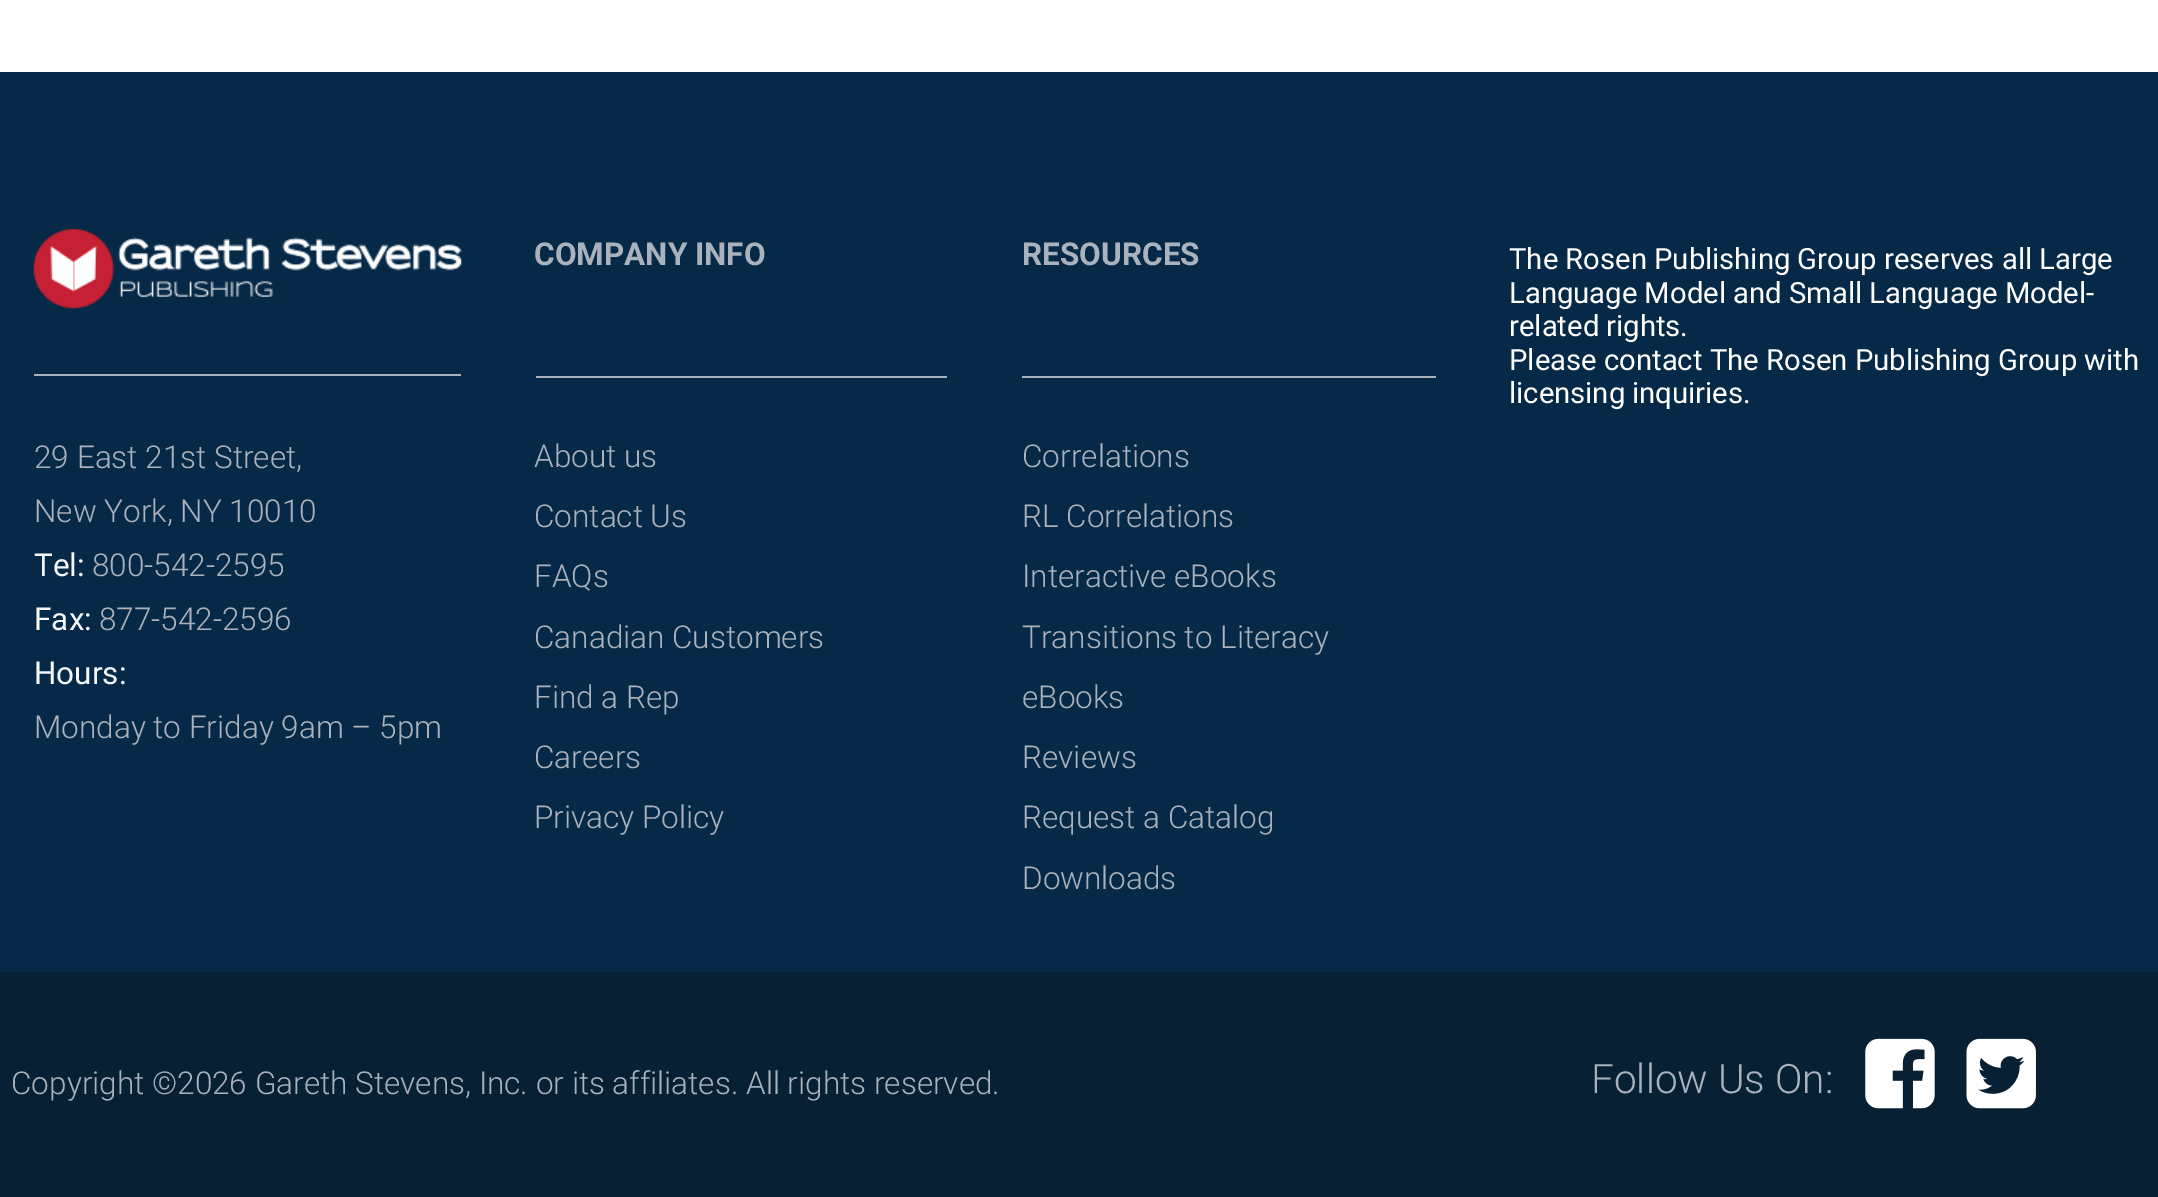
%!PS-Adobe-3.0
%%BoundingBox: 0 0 2158 1197
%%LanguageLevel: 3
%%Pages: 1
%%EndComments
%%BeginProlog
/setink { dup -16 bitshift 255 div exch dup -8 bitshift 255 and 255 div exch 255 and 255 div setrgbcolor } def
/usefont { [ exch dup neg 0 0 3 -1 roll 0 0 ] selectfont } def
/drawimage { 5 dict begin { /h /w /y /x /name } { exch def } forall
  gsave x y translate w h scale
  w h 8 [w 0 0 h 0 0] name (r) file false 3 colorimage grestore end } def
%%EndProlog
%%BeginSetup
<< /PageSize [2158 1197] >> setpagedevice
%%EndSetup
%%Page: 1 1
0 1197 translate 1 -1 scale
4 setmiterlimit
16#FFFFFF setink
0 0 2158 1197 rectfill
16#062947 setink
0 72 2158 900 rectfill
/Roboto-Bold 31.5 usefont
16#AAB2BD setink
534 265 moveto (COMPANY INFO) show
536 376 411 2 rectfill
/Roboto-Light 31.5 usefont
[
    [(About us) 534 467]
    [(Contact Us) 534 527]
    [(FAQs) 534 587]
    [(Canadian Customers) 534 648]
    [(Find a Rep) 534 708]
    [(Careers) 534 768]
    [(Privacy Policy) 534 828]
] { aload pop moveto show } forall
/Roboto-Bold 31.5 usefont
1022 265 moveto (RESOURCES) show
1022 376 414 2 rectfill
/Roboto-Light 31.5 usefont
[
    [(Correlations) 1022 467]
    [(RL Correlations) 1022 527]
    [(Interactive eBooks) 1022 587]
    [(Transitions to Literacy) 1022 648]
    [(eBooks) 1022 708]
    [(Reviews) 1022 768]
    [(Request a Catalog) 1022 828]
    [(Downloads) 1022 889]
] { aload pop moveto show } forall
/Roboto-Regular 29.25 usefont
16#FFFFFF setink
[
    [(The Rosen Publishing Group reserves all Large) 1509 269]
    [(Language Model and Small Language Model-) 1509 303]
    [(related rights.) 1509 336]
    [(Please contact The Rosen Publishing Group with) 1509 370]
    [(licensing inquiries.) 1509 403]
] { aload pop moveto show } forall
16#AAB2BD setink
34 374 427 2 rectfill
(img1.raw) 33 229 429 80 drawimage
/Roboto-Light 31.5 usefont
34 468 moveto (29 East 21st Street,) show
34 522 moveto (New York, NY 10010) show
/Roboto-Regular 31.5 usefont
16#F5F7FA setink
34 576 moveto (Tel:) show
/Roboto-Light 31.5 usefont
16#AAB2BD setink
92 576 moveto (800-542-2595) show
/Roboto-Regular 31.5 usefont
16#F5F7FA setink
34 630 moveto (Fax:) show
/Roboto-Light 31.5 usefont
16#AAB2BD setink
99 630 moveto (877-542-2596) show
/Roboto-Regular 31.5 usefont
16#F5F7FA setink
34 684 moveto (Hours:) show
/Roboto-Light 31.5 usefont
16#AAB2BD setink
34 738 moveto (Monday to Friday 9am – 5pm) show
16#082034 setink
0 972 2158 225 rectfill
16#AAB2BD setink
11 1094 moveto (Copyright ©2026 Gareth Stevens, Inc. or its affiliates. All rights reserved.) show
/Roboto-Light 40.5 usefont
1591 1093 moveto (Follow Us On:) show
(img2.raw) 1865 1038 70 71 drawimage
(img3.raw) 1966 1038 70 71 drawimage
showpage
%%EOF
